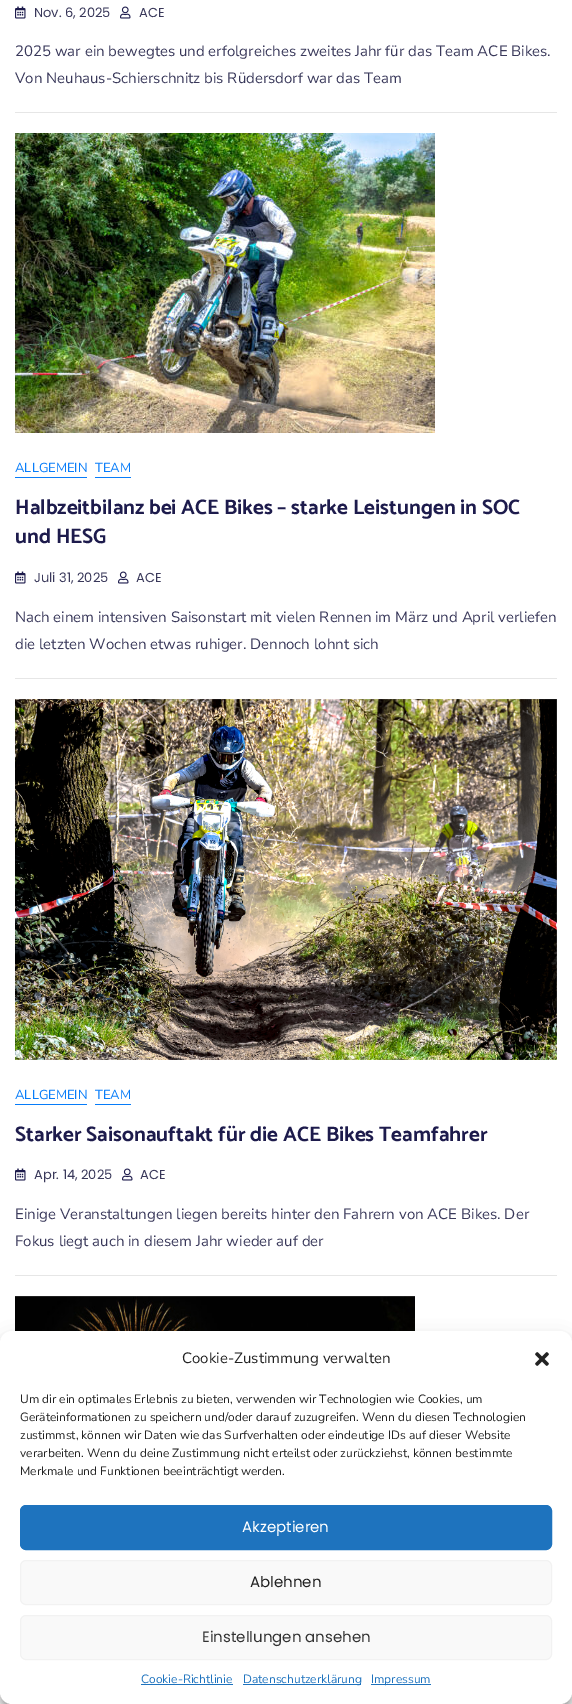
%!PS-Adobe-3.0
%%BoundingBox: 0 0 572 1704
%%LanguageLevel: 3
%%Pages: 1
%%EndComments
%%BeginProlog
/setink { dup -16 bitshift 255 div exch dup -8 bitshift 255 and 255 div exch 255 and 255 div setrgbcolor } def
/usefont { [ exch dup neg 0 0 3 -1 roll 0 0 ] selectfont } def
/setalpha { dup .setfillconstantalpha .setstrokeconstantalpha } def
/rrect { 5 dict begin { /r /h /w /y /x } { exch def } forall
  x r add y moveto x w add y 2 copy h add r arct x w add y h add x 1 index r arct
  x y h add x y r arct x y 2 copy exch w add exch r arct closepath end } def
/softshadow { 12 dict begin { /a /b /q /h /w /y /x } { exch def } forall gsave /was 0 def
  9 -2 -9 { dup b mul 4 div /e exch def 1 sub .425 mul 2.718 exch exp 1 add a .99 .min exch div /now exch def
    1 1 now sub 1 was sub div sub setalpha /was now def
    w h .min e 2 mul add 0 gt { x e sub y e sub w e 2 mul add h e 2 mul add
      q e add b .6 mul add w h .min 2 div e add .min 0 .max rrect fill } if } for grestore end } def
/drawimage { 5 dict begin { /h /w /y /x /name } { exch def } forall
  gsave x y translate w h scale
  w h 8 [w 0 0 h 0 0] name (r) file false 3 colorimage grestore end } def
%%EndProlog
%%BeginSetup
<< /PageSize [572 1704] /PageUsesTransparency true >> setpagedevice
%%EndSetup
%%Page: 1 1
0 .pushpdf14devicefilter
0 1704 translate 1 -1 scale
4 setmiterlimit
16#FFFFFF setink
0 0 572 1704 rectfill
16#E6E6E6 setink
15 112 542 1 rectfill
(img1.raw) 15 6 11 13 drawimage
/Poppins-Regular 13 usefont
16#39385A setink
34 17 moveto (Nov. 6, 2025) show
(img2.raw) 120 6 11 13 drawimage
139 17 moveto (ACE) show
/NunitoSans-ExtraLight 15 usefont
15 56 moveto (2025 war ein bewegtes und erfolgreiches zweites Jahr für das Team ACE Bikes.) show
15 83 moveto (Von Neuhaus-Schierschnitz bis Rüdersdorf war das Team) show
16#E6E6E6 setink
15 678 542 1 rectfill
(img3.raw) 15 133 420 300 drawimage
/NunitoSans-ExtraLight 13 usefont
16#077CF9 setink
15 472 moveto (ALLGEMEIN) show
15 477 72 1 rectfill
95 472 moveto (TEAM) show
95 477 36 1 rectfill
/Catamaran-Bold 21 usefont
16#1D1B4C setink
15 514 moveto (Halbzeitbilanz bei ACE Bikes – starke Leistungen in SOC) show
15 543 moveto (und HESG) show
(img1.raw) 15 571 11 13 drawimage
/Poppins-Regular 13 usefont
16#39385A setink
34 582 moveto (Juli 31, 2025) show
(img2.raw) 118 571 11 13 drawimage
136 582 moveto (ACE) show
/NunitoSans-ExtraLight 15 usefont
15 622 moveto (Nach einem intensiven Saisonstart mit vielen Rennen im März und April verliefen) show
15 649 moveto (die letzten Wochen etwas ruhiger. Dennoch lohnt sich) show
16#E6E6E6 setink
15 1275 542 1 rectfill
(img4.raw) 15 699 542 361 drawimage
/NunitoSans-ExtraLight 13 usefont
16#077CF9 setink
15 1099 moveto (ALLGEMEIN) show
15 1104 72 1 rectfill
95 1099 moveto (TEAM) show
95 1104 36 1 rectfill
/Catamaran-Bold 21 usefont
16#1D1B4C setink
15 1141 moveto (Starker Saisonauftakt für die ACE Bikes Teamfahrer) show
(img1.raw) 15 1168 11 13 drawimage
/Poppins-Regular 13 usefont
16#39385A setink
34 1179 moveto (Apr. 14, 2025) show
(img2.raw) 122 1168 11 13 drawimage
140 1179 moveto (ACE) show
/NunitoSans-ExtraLight 15 usefont
15 1219 moveto (Einige Veranstaltungen liegen bereits hinter den Fahrern von ACE Bikes. Der) show
15 1246 moveto (Fokus liegt auch in diesem Jahr wieder auf der) show
(img5.raw) 15 1296 400 35 drawimage
16#000000 setink
0 1337 572 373 12 3 0.23 softshadow
0 1341 572 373 12 10 0.19 softshadow
16#FFFFFF setink
0 1331 572 373 12 rrect fill
16#222222 setink
182 1363 moveto (Cookie-Zustimmung verwalten) show
(img6.raw) 535 1352 14 14 drawimage
/NunitoSans-ExtraLight 12 usefont
[
    [(Um dir ein optimales Erlebnis zu bieten, verwenden wir Technologien wie Cookies, um) 20 1403]
    [(Geräteinformationen zu speichern und/oder darauf zuzugreifen. Wenn du diesen Technologien) 20 1421]
    [(zustimmst, können wir Daten wie das Surfverhalten oder eindeutige IDs auf dieser Website) 20 1439]
    [(verarbeiten. Wenn du deine Zustimmung nicht erteilst oder zurückziehst, können bestimmte) 20 1457]
    [(Merkmale und Funktionen beeinträchtigt werden.) 20 1475]
] { aload pop moveto show } forall
16#1E73BE setink
20.5 1505.5 531 44 5.5 rrect gsave fill grestore
stroke
/Poppins-Regular 15 usefont
16#FFFFFF setink
242 1532 moveto (Akzeptieren) show
16#F9F9F9 setink
20.5 1560.5 531 44 5.5 rrect gsave fill grestore
16#F2F2F2 setink
stroke
16#222222 setink
250 1587 moveto (Ablehnen) show
16#F9F9F9 setink
20.5 1615.5 531 44 5.5 rrect gsave fill grestore
16#F2F2F2 setink
stroke
16#333333 setink
202 1642 moveto (Einstellungen ansehen) show
/NunitoSans-ExtraLight 12 usefont
16#1E73BE setink
141 1683 moveto (Cookie-Richtlinie) show
141 1684 92 1 rectfill
243 1684 118 1 rectfill
243 1683 moveto (Datenschutzerklärung) show
371 1684 60 1 rectfill
371 1683 moveto (Impressum) show
.poppdf14devicefilter showpage
%%EOF
